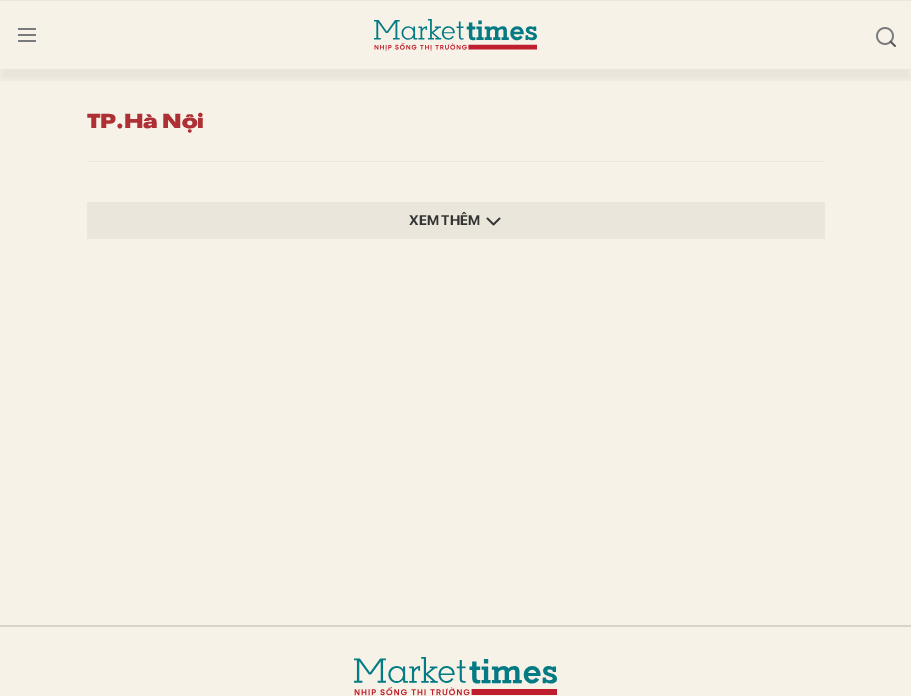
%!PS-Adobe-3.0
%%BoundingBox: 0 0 911 696
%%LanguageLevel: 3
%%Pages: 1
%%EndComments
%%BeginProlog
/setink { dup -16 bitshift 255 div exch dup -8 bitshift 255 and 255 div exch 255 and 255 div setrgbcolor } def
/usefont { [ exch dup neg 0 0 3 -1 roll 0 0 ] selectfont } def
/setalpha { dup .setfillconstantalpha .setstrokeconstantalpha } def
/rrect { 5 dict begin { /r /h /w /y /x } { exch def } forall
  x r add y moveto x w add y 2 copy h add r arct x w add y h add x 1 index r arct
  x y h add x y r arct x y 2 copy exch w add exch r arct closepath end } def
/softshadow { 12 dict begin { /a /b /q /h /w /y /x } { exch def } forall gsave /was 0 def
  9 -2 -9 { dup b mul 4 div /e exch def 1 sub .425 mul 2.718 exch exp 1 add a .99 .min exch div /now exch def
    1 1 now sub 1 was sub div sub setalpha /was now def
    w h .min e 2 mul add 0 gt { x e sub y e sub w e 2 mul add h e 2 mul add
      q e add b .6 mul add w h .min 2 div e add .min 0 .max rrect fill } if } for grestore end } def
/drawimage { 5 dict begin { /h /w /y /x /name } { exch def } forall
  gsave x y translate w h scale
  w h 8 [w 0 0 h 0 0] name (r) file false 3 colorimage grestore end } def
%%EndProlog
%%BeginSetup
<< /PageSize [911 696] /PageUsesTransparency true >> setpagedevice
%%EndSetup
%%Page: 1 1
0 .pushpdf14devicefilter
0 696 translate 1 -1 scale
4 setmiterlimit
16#F7F2E7 setink
0 0 911 696 rectfill
16#EBE6DB setink
0 0 911 1 rectfill
gsave
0 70 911 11 rectclip
16#000000 setink
0 11 911 69 0 5 0.05 softshadow
grestore
0 69 911 1 rectfill
16#797A7E setink
18 34 18 2 1 rrect fill
18 28 18 2 1 rrect fill
18 40 18 2 1 rrect fill
(img1.raw) 374 19 163 32 drawimage
(img2.raw) 876 27 20 20 drawimage
/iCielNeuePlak-Black 20 usefont
16#AE3034 setink
87 128 moveto (TP.Hà Nội) show
16#EBE6DB setink
87 161 738 1 rectfill
87 202 738 37 rectfill
/SFProDisplay-Bold 14 usefont
16#333333 setink
409 225 moveto (XEM THÊM) show
(img3.raw) 486 217 15 9 drawimage
16#D8D3CD setink
0 625 911 2 rectfill
(img4.raw) 354 657 203 39 drawimage
.poppdf14devicefilter showpage
%%EOF
